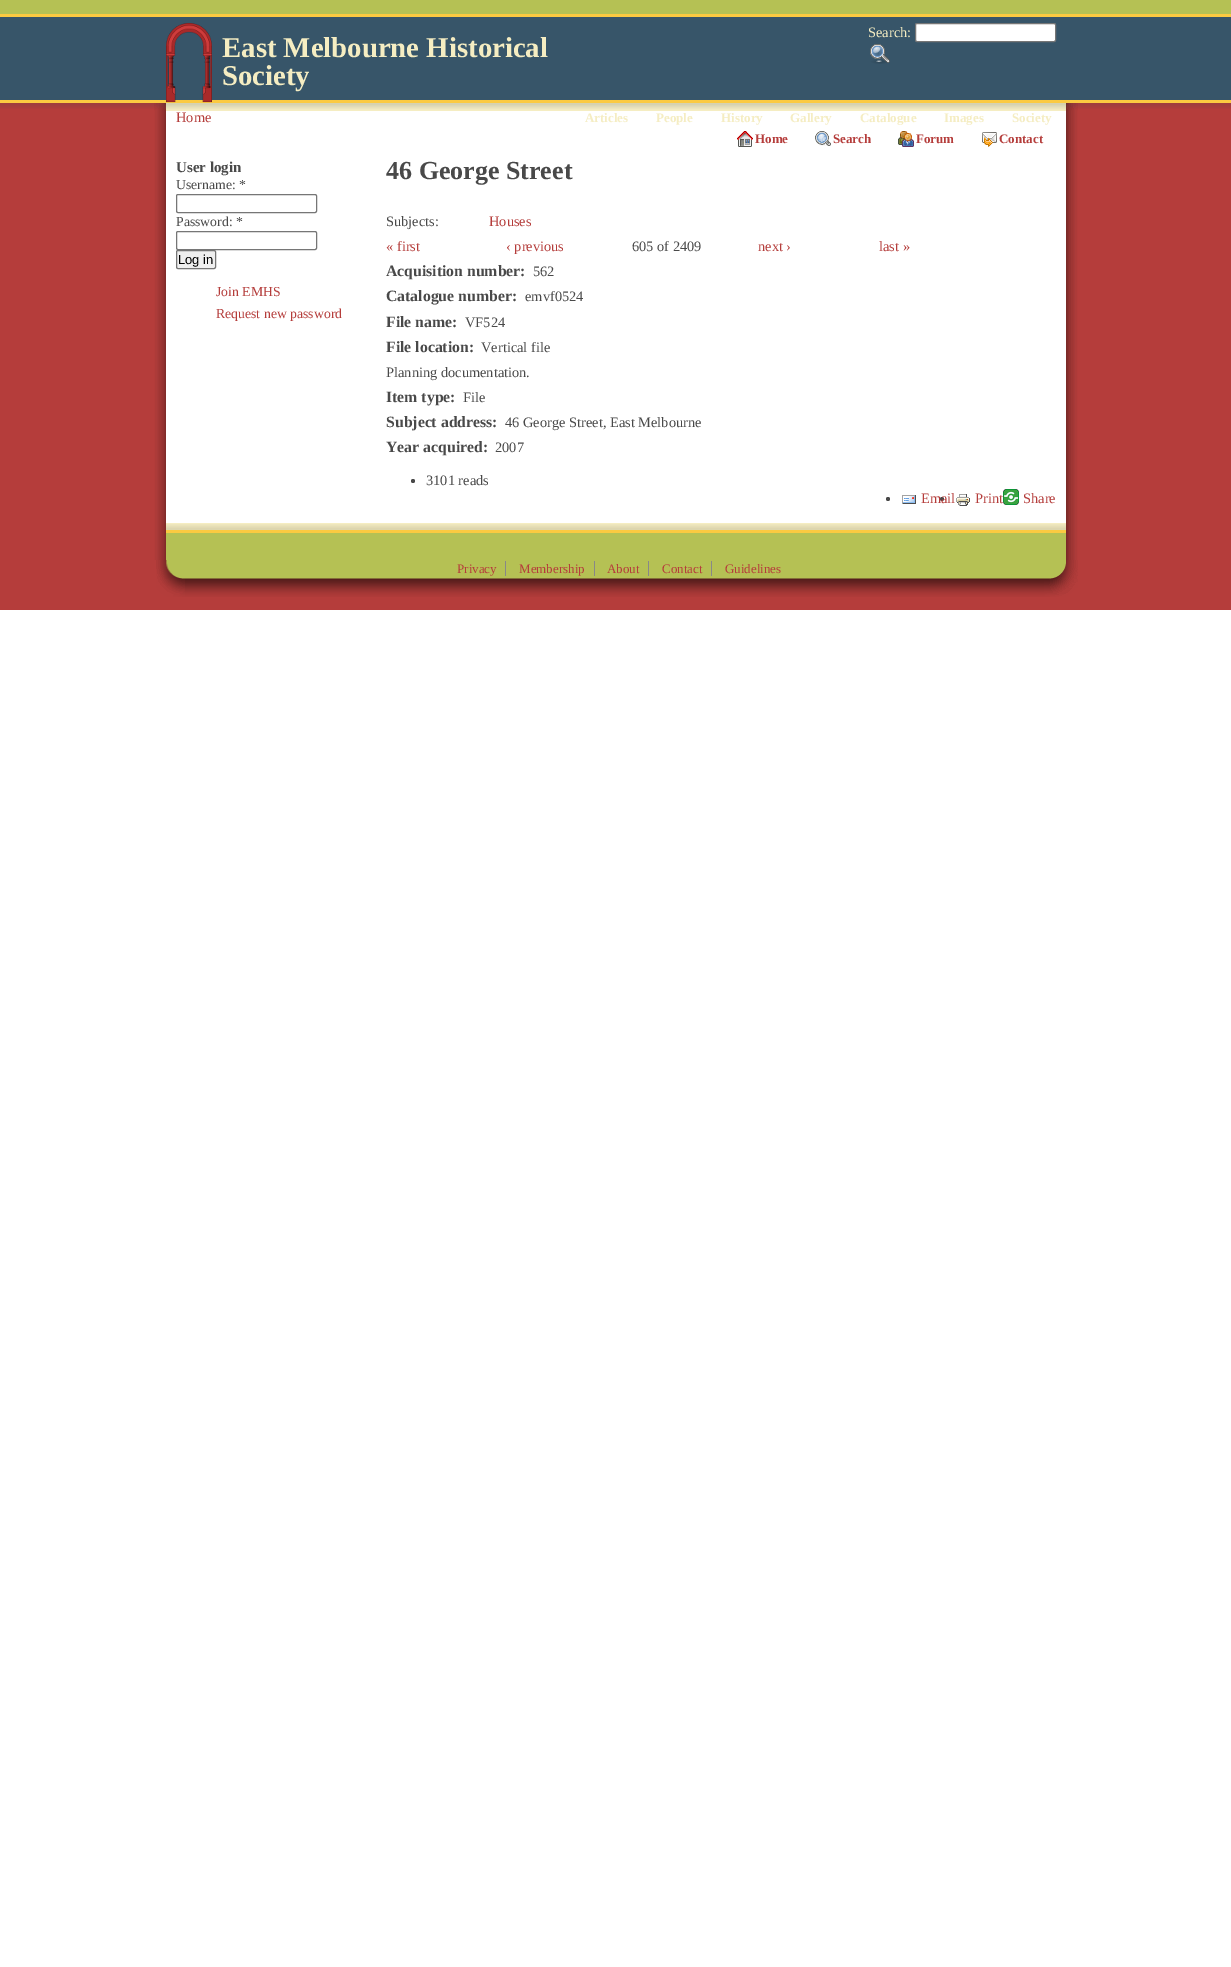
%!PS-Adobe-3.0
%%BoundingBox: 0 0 1231 1967
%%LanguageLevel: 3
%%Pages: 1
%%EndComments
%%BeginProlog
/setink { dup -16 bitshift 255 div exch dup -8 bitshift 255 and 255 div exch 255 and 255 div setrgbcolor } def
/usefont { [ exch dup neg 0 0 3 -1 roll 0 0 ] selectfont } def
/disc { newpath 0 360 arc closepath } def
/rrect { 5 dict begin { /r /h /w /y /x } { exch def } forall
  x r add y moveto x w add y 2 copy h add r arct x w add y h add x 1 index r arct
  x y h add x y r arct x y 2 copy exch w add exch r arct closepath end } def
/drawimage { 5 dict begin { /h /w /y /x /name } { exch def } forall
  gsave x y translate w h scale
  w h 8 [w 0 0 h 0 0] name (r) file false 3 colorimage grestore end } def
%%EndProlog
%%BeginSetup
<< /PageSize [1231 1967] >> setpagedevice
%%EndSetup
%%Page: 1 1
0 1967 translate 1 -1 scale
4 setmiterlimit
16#FFFFFF setink
0 0 1231 1967 rectfill
[
    [0 0 1231 14 16#B5C154]
    [0 17 1231 83 16#375569]
    [0 14 1231 3 16#FBCA41]
    [0 100 1231 3 16#FBCA41]
] { aload pop setink rectfill } forall
(img1.raw) 166 23 46 80 drawimage
/LiberationSerif-Regular 14.4 usefont
16#F5EDC2 setink
868 37 moveto (Search:) show
16#FFFFFF setink
915.5 23.5 140 18 1.5 rrect gsave fill grestore
16#767676 setink
stroke
(img2.raw) 870 44 20 20 drawimage
/LiberationSerif-Bold 28.75 usefont
16#F5EDC2 setink
222 57 moveto (East Melbourne Historical) show
222 85 moveto (Society) show
16#B53D3B setink
0 109 1231 501 rectfill
16#FFFFFF setink
166 111 900 412 rectfill
/LiberationSerif-Bold 13 usefont
16#F5EDC2 setink
[
    [(Articles) 585 122]
    [(People) 656 122]
    [(History) 721 122]
    [(Gallery) 790 122]
    [(Catalogue) 860 122]
    [(Images) 944 122]
    [(Society) 1012 122]
] { aload pop moveto show } forall
(img3.raw) 0 103 1231 6 drawimage
(img4.raw) 1066 103 12 457 drawimage
(img5.raw) 154 103 12 457 drawimage
(img6.raw) 166 103 900 8 drawimage
/LiberationSerif-Regular 14.4 usefont
16#B53D3B setink
176 122 moveto (Home) show
(img7.raw) 737 131 16 16 drawimage
/LiberationSerif-Bold 13 usefont
755 143 moveto (Home) show
(img8.raw) 815 131 16 15 drawimage
833 143 moveto (Search) show
(img9.raw) 898 131 16 16 drawimage
916 143 moveto (Forum) show
(img10.raw) 982 132 15 15 drawimage
999 143 moveto (Contact) show
/LiberationSerif-Bold 15 usefont
16#494949 setink
176 172 moveto (User login) show
/LiberationSerif-Regular 13.75 usefont
176 189 moveto (Username: *) show
16#767676 setink
176.5 194.5 140 18 1.5 rrect stroke
16#494949 setink
176 226 moveto (Password: *) show
16#767676 setink
176.5 231.5 140 18 1.5 rrect stroke
16#EFEFEF setink
176.5 250.5 39 18 1.5 rrect gsave fill grestore
16#767676 setink
stroke
/LiberationSans-Regular 13 usefont
16#000000 setink
178 264 moveto (Log in) show
/LiberationSerif-Regular 13.75 usefont
16#B53D3B setink
216 296 moveto (Join EMHS) show
216 318 moveto (Request new password) show
/LiberationSerif-Bold 26 usefont
16#494949 setink
386 179 moveto (46 George Street) show
/LiberationSerif-Regular 14.4 usefont
386 226 moveto (Subjects:) show
16#B53D3B setink
[
    [(Houses) 489 226]
    [(« first) 386 251]
    [(‹ previous) 506 251]
] { aload pop moveto show } forall
16#494949 setink
632 251 moveto (605 of 2409) show
16#B53D3B setink
758 251 moveto (next ›) show
879 251 moveto (last ») show
/LiberationSerif-Bold 15.75 usefont
16#494949 setink
386 276 moveto (Acquisition number:) show
/LiberationSerif-Regular 14.4 usefont
533 276 moveto (562) show
/LiberationSerif-Bold 15.75 usefont
386 301 moveto (Catalogue number:) show
/LiberationSerif-Regular 14.4 usefont
525 301 moveto (emvf0524) show
/LiberationSerif-Bold 15.75 usefont
386 327 moveto (File name:) show
/LiberationSerif-Regular 14.4 usefont
465 327 moveto (VF524) show
/LiberationSerif-Bold 15.75 usefont
386 352 moveto (File location:) show
/LiberationSerif-Regular 14.4 usefont
481 352 moveto (Vertical file) show
386 377 moveto (Planning documentation.) show
/LiberationSerif-Bold 15.75 usefont
386 402 moveto (Item type:) show
/LiberationSerif-Regular 14.4 usefont
463 402 moveto (File) show
/LiberationSerif-Bold 15.75 usefont
386 427 moveto (Subject address:) show
/LiberationSerif-Regular 14.4 usefont
505 427 moveto (46 George Street, East Melbourne) show
/LiberationSerif-Bold 15.75 usefont
386 452 moveto (Year acquired:) show
/LiberationSerif-Regular 14.4 usefont
495 452 moveto (2007) show
413 481 2 disc fill
426 485 moveto (3101 reads) show
888 499 2 disc fill
(img11.raw) 902 495 14 9 drawimage
942 499 2 disc fill
16#B53D3B setink
921 503 moveto (Email) show
(img12.raw) 956 494 14 12 drawimage
(img13.raw) 1003 489 16 16 drawimage
975 503 moveto (Print) show
1023 503 moveto (Share) show
16#F5EDC2 setink
166 523 900 1 rectfill
(img14.raw) 166 524 900 9 drawimage
16#B5C154 setink
166 533 900 27 rectfill
(img17.raw) 185 560 859 37 drawimage
/LiberationSerif-Regular 13 usefont
16#B53D3B setink
457 573 moveto (Privacy) show
519 573 moveto (Membership) show
16#888888 setink
505 561 1 15 rectfill
16#B53D3B setink
607 573 moveto (About) show
16#888888 setink
594 561 1 15 rectfill
16#B53D3B setink
662 573 moveto (Contact) show
16#888888 setink
648 561 1 15 rectfill
16#B53D3B setink
725 573 moveto (Guidelines) show
16#888888 setink
711 561 1 15 rectfill
(img15.raw) 1044 560 34 37 drawimage
(img16.raw) 156 560 29 37 drawimage
showpage
%%EOF
